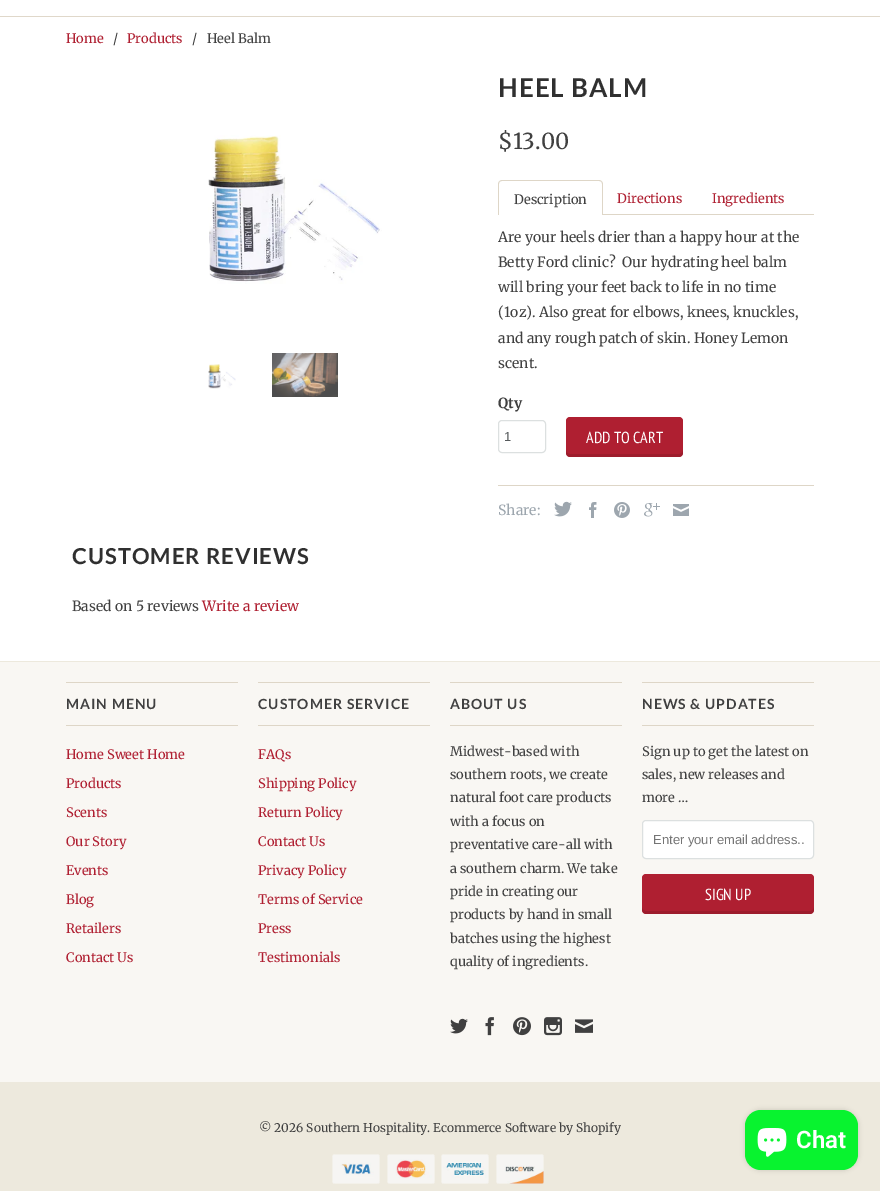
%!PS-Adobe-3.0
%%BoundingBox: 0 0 880 1191
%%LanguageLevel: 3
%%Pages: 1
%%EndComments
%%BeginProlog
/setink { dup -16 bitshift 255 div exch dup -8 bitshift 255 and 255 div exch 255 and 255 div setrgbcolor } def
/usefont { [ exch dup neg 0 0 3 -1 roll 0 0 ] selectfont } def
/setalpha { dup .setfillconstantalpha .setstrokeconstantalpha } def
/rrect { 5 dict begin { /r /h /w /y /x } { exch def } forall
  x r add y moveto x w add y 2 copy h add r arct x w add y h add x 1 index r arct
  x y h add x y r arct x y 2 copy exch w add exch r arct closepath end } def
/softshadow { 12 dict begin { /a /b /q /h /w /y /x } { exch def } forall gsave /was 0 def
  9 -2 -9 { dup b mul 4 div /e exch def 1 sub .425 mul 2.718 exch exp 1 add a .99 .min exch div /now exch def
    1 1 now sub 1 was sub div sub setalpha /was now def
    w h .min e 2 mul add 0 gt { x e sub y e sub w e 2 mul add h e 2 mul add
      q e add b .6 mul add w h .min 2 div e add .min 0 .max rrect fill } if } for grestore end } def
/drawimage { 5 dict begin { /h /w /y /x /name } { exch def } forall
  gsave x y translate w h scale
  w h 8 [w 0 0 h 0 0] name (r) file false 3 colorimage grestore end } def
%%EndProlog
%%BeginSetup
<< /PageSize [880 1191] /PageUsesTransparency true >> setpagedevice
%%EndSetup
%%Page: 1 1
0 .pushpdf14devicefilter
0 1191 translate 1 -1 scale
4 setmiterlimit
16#FFFFFF setink
0 0 880 1191 rectfill
16#E0D8CA setink
0 16 880 1 rectfill
/Merriweather-Regular 13 usefont
16#AF1F31 setink
66 43 moveto (Home) show
16#404040 setink
113 43 moveto (/) show
16#AF1F31 setink
127 43 moveto (Products) show
16#404040 setink
192 43 moveto (/) show
207 43 moveto (Heel Balm) show
(img1.raw) 208 135 174 149 drawimage
(img2.raw) 208 364 28 25 drawimage
(img3.raw) 272 353 66 44 drawimage
/Lato-Bold 26 usefont
16#303030 setink
498 97 moveto 1 0 (HEEL BALM) ashow
/Merriweather-Regular 22 usefont
16#404040 setink
498 149 moveto ($13.00) show
16#DED6C7 setink
603 214 211 1 rectfill
502 180 moveto 599 180 lineto 601 180 603 182 603 184 curveto 603 215 lineto 498 215 lineto 498 184 lineto 498 182 500 180 502 180 curveto closepath 502 181 moveto 599 181 lineto 601 181 602 182 602 184 curveto 602 215 lineto 499 215 lineto 499 184 lineto 499 182 500 181 502 181 curveto closepath eofill
/Merriweather-Regular 13 usefont
16#404040 setink
514 204 moveto (Description) show
16#AF1F31 setink
617 203 moveto (Directions) show
712 203 moveto (Ingredients) show
/Merriweather-Regular 14 usefont
16#404040 setink
[
    [(Are your heels drier than a happy hour at the) 498 242]
    [(Betty Ford clinic?  Our hydrating heel balm) 498 267]
    [(will bring your feet back to life in no time) 498 292]
    [(\(1oz\). Also great for elbows, knees, knuckles,) 498 317]
    [(and any rough patch of skin. Honey Lemon) 498 343]
    [(scent.) 498 368]
] { aload pop moveto show } forall
/Merriweather-Bold 14 usefont
498 408 moveto (Qty) show
16#DCE0E0 setink
498.5 420.5 47 32 3.5 rrect stroke
/LiberationSans-Regular 13 usefont
16#565A5C setink
504 441 moveto (1) show
16#AF1F31 setink
566 417 117 40 4 rrect fill
0.1 setalpha
16#000000 setink
566 450 moveto 566 453 lineto 566 455 568 457 570 457 curveto 679 457 lineto 681 457 683 455 683 453 curveto 683 450 lineto 683 452 681 454 679 454 curveto 570 454 lineto 568 454 566 452 566 450 curveto closepath fill
/PTSansNarrow-Regular 16 usefont
1 setalpha
16#FFFFFF setink
586 443 moveto (ADD TO CART) show
16#DED6C7 setink
498 485 316 1 rectfill
/Merriweather-Regular 14 usefont
16#9DA6AE setink
498 515 moveto (Share:) show
(img4.raw) 554 501 18 16 drawimage
(img5.raw) 589 502 8 16 drawimage
(img6.raw) 614 502 16 16 drawimage
(img7.raw) 644 503 16 14 drawimage
(img8.raw) 673 504 16 12 drawimage
/Lato-Bold 22 usefont
16#303030 setink
72 564 moveto 1 0 (CUSTOMER REVIEWS) ashow
/Merriweather-Regular 14 usefont
16#404040 setink
72 611 moveto (Based on 5 reviews) show
16#AF1F31 setink
202 611 moveto (Write a review) show
[
    [0 662 880 420 16#F9F7F3]
    [0 661 880 1 16#EDE9DD]
    [66 682 172 1 16#DED6C7]
    [66 725 172 1 16#DED6C7]
] { aload pop setink rectfill } forall
/Lato-Bold 14 usefont
16#404040 setink
66 709 moveto 1 0 (MAIN MENU) ashow
/Merriweather-Regular 13 usefont
16#AF1F31 setink
[
    [(Home Sweet Home) 66 759]
    [(Products) 66 788]
    [(Scents) 66 817]
    [(Our Story) 66 846]
    [(Events) 66 875]
    [(Blog) 66 904]
    [(Retailers) 66 933]
    [(Contact Us) 66 962]
] { aload pop moveto show } forall
16#DED6C7 setink
258 682 172 1 rectfill
258 725 172 1 rectfill
/Lato-Bold 14 usefont
16#404040 setink
258 709 moveto 1 0 (CUSTOMER SERVICE) ashow
/Merriweather-Regular 13 usefont
16#AF1F31 setink
[
    [(FAQs) 258 759]
    [(Shipping Policy) 258 788]
    [(Return Policy) 258 817]
    [(Contact Us) 258 846]
    [(Privacy Policy) 258 875]
    [(Terms of Service) 258 904]
    [(Press) 258 933]
    [(Testimonials) 258 962]
] { aload pop moveto show } forall
16#DED6C7 setink
450 682 172 1 rectfill
450 725 172 1 rectfill
/Lato-Bold 14 usefont
16#404040 setink
450 709 moveto 1 0 (ABOUT US) ashow
/Merriweather-Regular 13 usefont
[
    [(Midwest-based with) 450 756]
    [(southern roots, we create) 450 779]
    [(natural foot care products) 450 802]
    [(with a focus on) 450 826]
    [(preventative care-all with) 450 849]
    [(a southern charm. We take) 450 873]
    [(pride in creating our) 450 896]
    [(products by hand in small) 450 919]
    [(batches using the highest) 450 943]
    [(quality of ingredients.) 450 966]
] { aload pop moveto show } forall
(img9.raw) 450 1018 18 16 drawimage
(img10.raw) 485 1017 9 19 drawimage
(img11.raw) 513 1017 18 19 drawimage
(img12.raw) 544 1017 18 19 drawimage
(img13.raw) 575 1019 18 14 drawimage
16#DED6C7 setink
642 682 172 1 rectfill
642 725 172 1 rectfill
/Lato-Bold 14 usefont
16#404040 setink
642 709 moveto 1 0 (NEWS & UPDATES) ashow
/Merriweather-Regular 13 usefont
[
    [(Sign up to get the latest on) 642 756]
    [(sales, new releases and) 642 779]
    [(more …) 642 802]
] { aload pop moveto show } forall
16#FFFFFF setink
642.5 820.5 171 38 3.5 rrect gsave fill grestore
16#DCE0E0 setink
stroke
/LiberationSans-Regular 13 usefont
16#757575 setink
653 844 moveto (Enter your email address..) show
16#AF1F31 setink
642 874 172 40 4 rrect fill
0.1 setalpha
16#000000 setink
642 907 moveto 642 910 lineto 642 912 644 914 646 914 curveto 810 914 lineto 812 914 814 912 814 910 curveto 814 907 lineto 814 909 812 911 810 911 curveto 646 911 lineto 644 911 642 909 642 907 curveto closepath fill
/PTSansNarrow-Regular 16 usefont
1 setalpha
16#FFFFFF setink
705 900 moveto (SIGN UP) show
16#EDE9DD setink
0 1082 880 109 rectfill
/Merriweather-Regular 12 usefont
16#404040 setink
259 1132 moveto (© 2026 Southern Hospitality. Ecommerce Software by Shopify) show
(img14.raw) 332 1154 48 30 drawimage
(img15.raw) 387 1154 48 30 drawimage
(img16.raw) 441 1154 48 30 drawimage
(img17.raw) 496 1154 48 30 drawimage
16#000000 setink
745 1110 113 60 16 2.5 0.15 softshadow
16#08F32F setink
745 1110 113 60 16 rrect fill
(img18.raw) 757 1128 30 29 drawimage
/Roboto-SemiBold 24 usefont
16#FFFFFF setink
796 1148 moveto (Chat) show
.poppdf14devicefilter showpage
%%EOF
